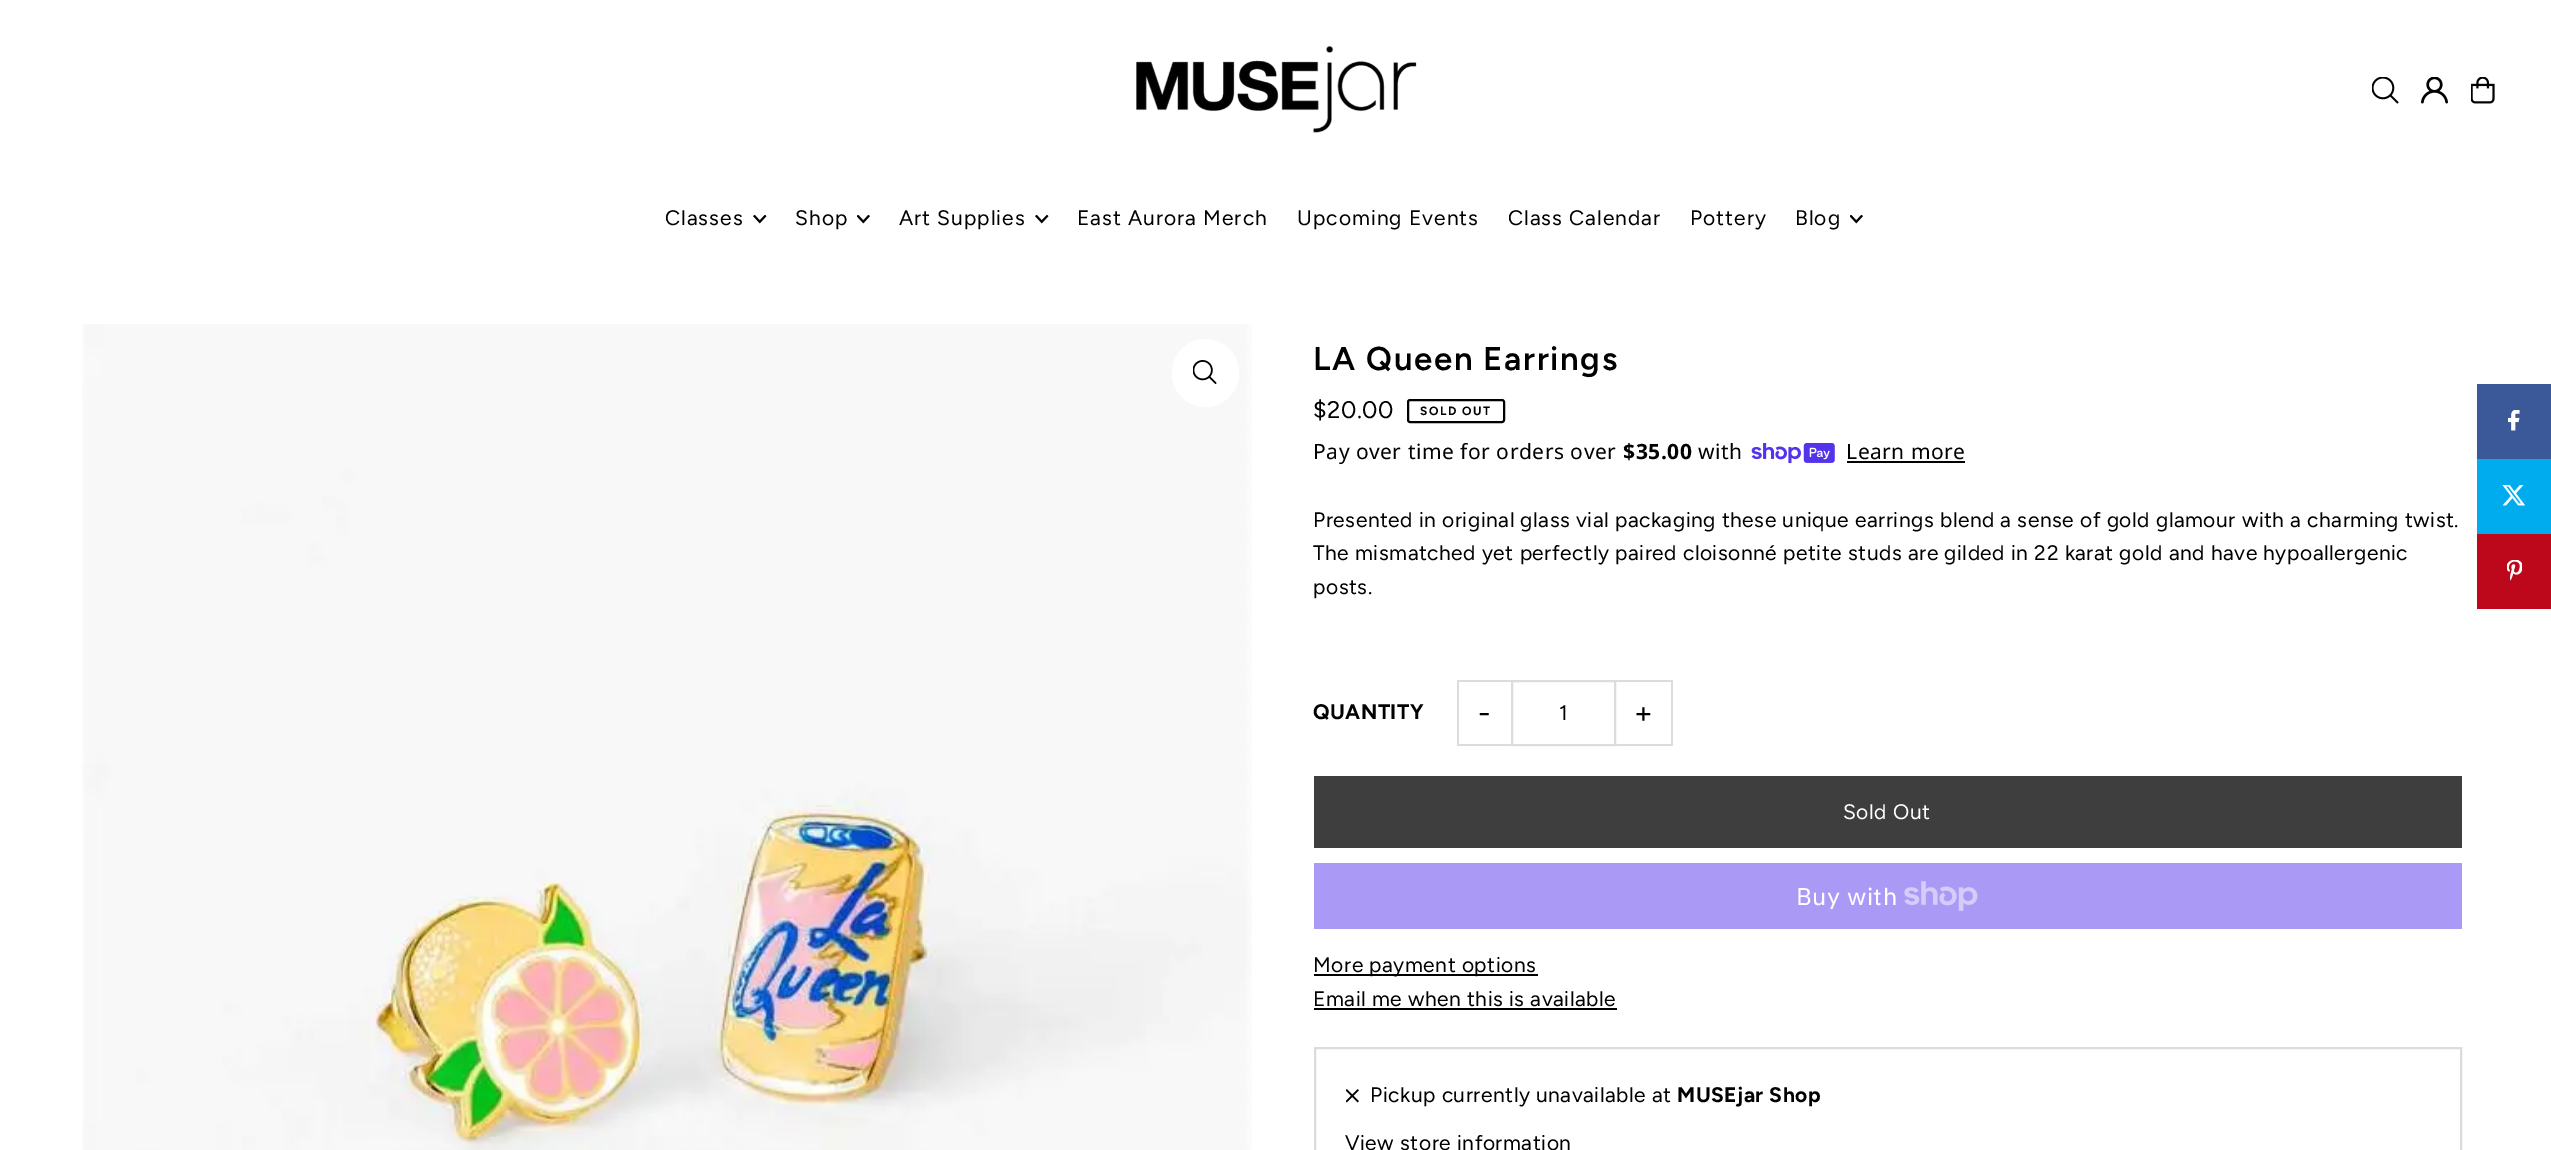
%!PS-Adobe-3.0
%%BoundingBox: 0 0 2551 1150
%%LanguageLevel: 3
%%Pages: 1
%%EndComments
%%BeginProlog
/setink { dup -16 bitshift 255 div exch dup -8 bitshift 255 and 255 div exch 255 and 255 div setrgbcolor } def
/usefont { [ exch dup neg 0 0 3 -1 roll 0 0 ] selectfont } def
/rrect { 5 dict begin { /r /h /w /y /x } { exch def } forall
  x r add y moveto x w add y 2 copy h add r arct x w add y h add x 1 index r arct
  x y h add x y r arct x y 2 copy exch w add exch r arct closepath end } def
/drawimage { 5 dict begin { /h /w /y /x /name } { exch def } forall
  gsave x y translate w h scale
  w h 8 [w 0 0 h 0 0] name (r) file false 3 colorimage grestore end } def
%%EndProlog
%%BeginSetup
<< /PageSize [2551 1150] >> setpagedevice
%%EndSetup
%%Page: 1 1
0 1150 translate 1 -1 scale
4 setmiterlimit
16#FFFFFF setink
0 0 2551 1150 rectfill
(img1.raw) 1136 46 281 87 drawimage
(img2.raw) 2372 77 27 27 drawimage
(img3.raw) 2421 77 27 27 drawimage
(img4.raw) 2471 77 24 27 drawimage
/Figtree-Regular 21 usefont
16#000000 setink
665 225 moveto 1 0 (Classes) ashow
(img5.raw) 753 215 14 9 drawimage
795 225 moveto 1 0 (Shop) ashow
(img6.raw) 857 215 13 9 drawimage
899 225 moveto 1 0 (Art Supplies) ashow
(img5.raw) 1035 215 14 9 drawimage
1077 225 moveto 1 0 (East Aurora Merch) ashow
1297 225 moveto 1 0 (Upcoming Events) ashow
1508 225 moveto 1 0 (Class Calendar) ashow
1690 225 moveto 1 0 (Pottery) ashow
1795 225 moveto 1 0 (Blog) ashow
(img6.raw) 1850 215 13 9 drawimage
(img7.raw) 82 324 1170 826 drawimage
16#FFFFFF setink
1172 339 67 68 33.5 rrect fill
(img8.raw) 1193 360 24 24 drawimage
/Figtree-SemiBold 33 usefont
16#000000 setink
1313 370 moveto 1.6 0 (LA Queen Earrings) ashow
/Figtree-Regular 24 usefont
1313 418 moveto 0.52 0 ($20.00) ashow
2 setlinewidth
1408 400 96 22 2 rrect stroke
/Figtree-Bold 12 usefont
1420 415 moveto 1.5 0 (SOLD OUT) ashow
/NotoSans-Regular 21 usefont
1313 459 moveto 0.52 0 (Pay over time for orders over) ashow
/NotoSans-Bold 21 usefont
1623 459 moveto 0.52 0 ($35.00) ashow
/NotoSans-Regular 21 usefont
1698 459 moveto 0.52 0 (with) ashow
(img9.raw) 1751 443 84 21 drawimage
1846 459 moveto 0.52 0 (Learn more) ashow
1847 461 118 2 rectfill
/Figtree-Regular 21 usefont
1313 527 moveto 0.52 0 (Presented in original glass vial packaging these unique earrings blend a sense of gold glamour with a charming twist.) ashow
1313 560 moveto 0.52 0 (The mismatched yet perfectly paired cloisonné petite studs are gilded in 22 karat gold and have hypoallergenic) ashow
1313 594 moveto 0.52 0 (posts.) ashow
/Figtree-Bold 21 usefont
1313 719 moveto 0.52 0 (QUANTITY) ashow
[
    [1457 680 57 2 16#DCDCDC]
    [1457 744 57 2 16#DCDCDC]
    [1457 680 2 66 16#DCDCDC]
] { aload pop setink rectfill } forall
/Figtree-Regular 30 usefont
16#000000 setink
1478 723 moveto 1 0 (-) ashow
16#DCDCDC setink
1512 681 103 64 rectstroke
/Figtree-Regular 21 usefont
16#000000 setink
1559 720 moveto 0.52 0 (1) ashow
[
    [1616 680 57 2 16#DCDCDC]
    [1671 680 2 66 16#DCDCDC]
    [1616 744 57 2 16#DCDCDC]
] { aload pop setink rectfill } forall
/Figtree-Regular 30 usefont
16#000000 setink
1634 723 moveto 1 0 (+) ashow
16#3E3E3E setink
1314 776 1148 72 rectfill
/Figtree-Regular 21 usefont
16#FFFFFF setink
1843 819 moveto 0.52 0 (Sold Out) ashow
16#AA99F5 setink
1314 863 1148 66 rectfill
/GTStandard-Regular 24 usefont
16#FFFFFF setink
1796 905 moveto 0.52 0 (Buy with) ashow
(img10.raw) 1904 881 74 30 drawimage
16#000000 setink
1314 974 224 2 rectfill
/Figtree-Regular 21 usefont
1313 972 moveto 0.52 0 (More payment options) ashow
1313 1006 moveto 0.52 0 (Email me when this is available) ashow
1314 1008 303 2 rectfill
16#DCDCDC setink
1315 1048 1146 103 rectstroke
(img11.raw) 1346 1089 13 14 drawimage
16#000000 setink
1370 1102 moveto 0.52 0 (Pickup currently unavailable at) ashow
/Figtree-Bold 21 usefont
1677 1102 moveto 0.52 0 (MUSEjar Shop) ashow
/Figtree-Regular 21 usefont
1345 1150 moveto 0.52 0 (View store information) ashow
16#3B5998 setink
2477 384 74 75 rectfill
(img12.raw) 2508 410 12 21 drawimage
16#00ACED setink
2477 459 74 75 rectfill
(img13.raw) 2502 485 24 21 drawimage
16#BD081C setink
2477 534 74 75 rectfill
(img14.raw) 2507 560 15 21 drawimage
showpage
%%EOF
